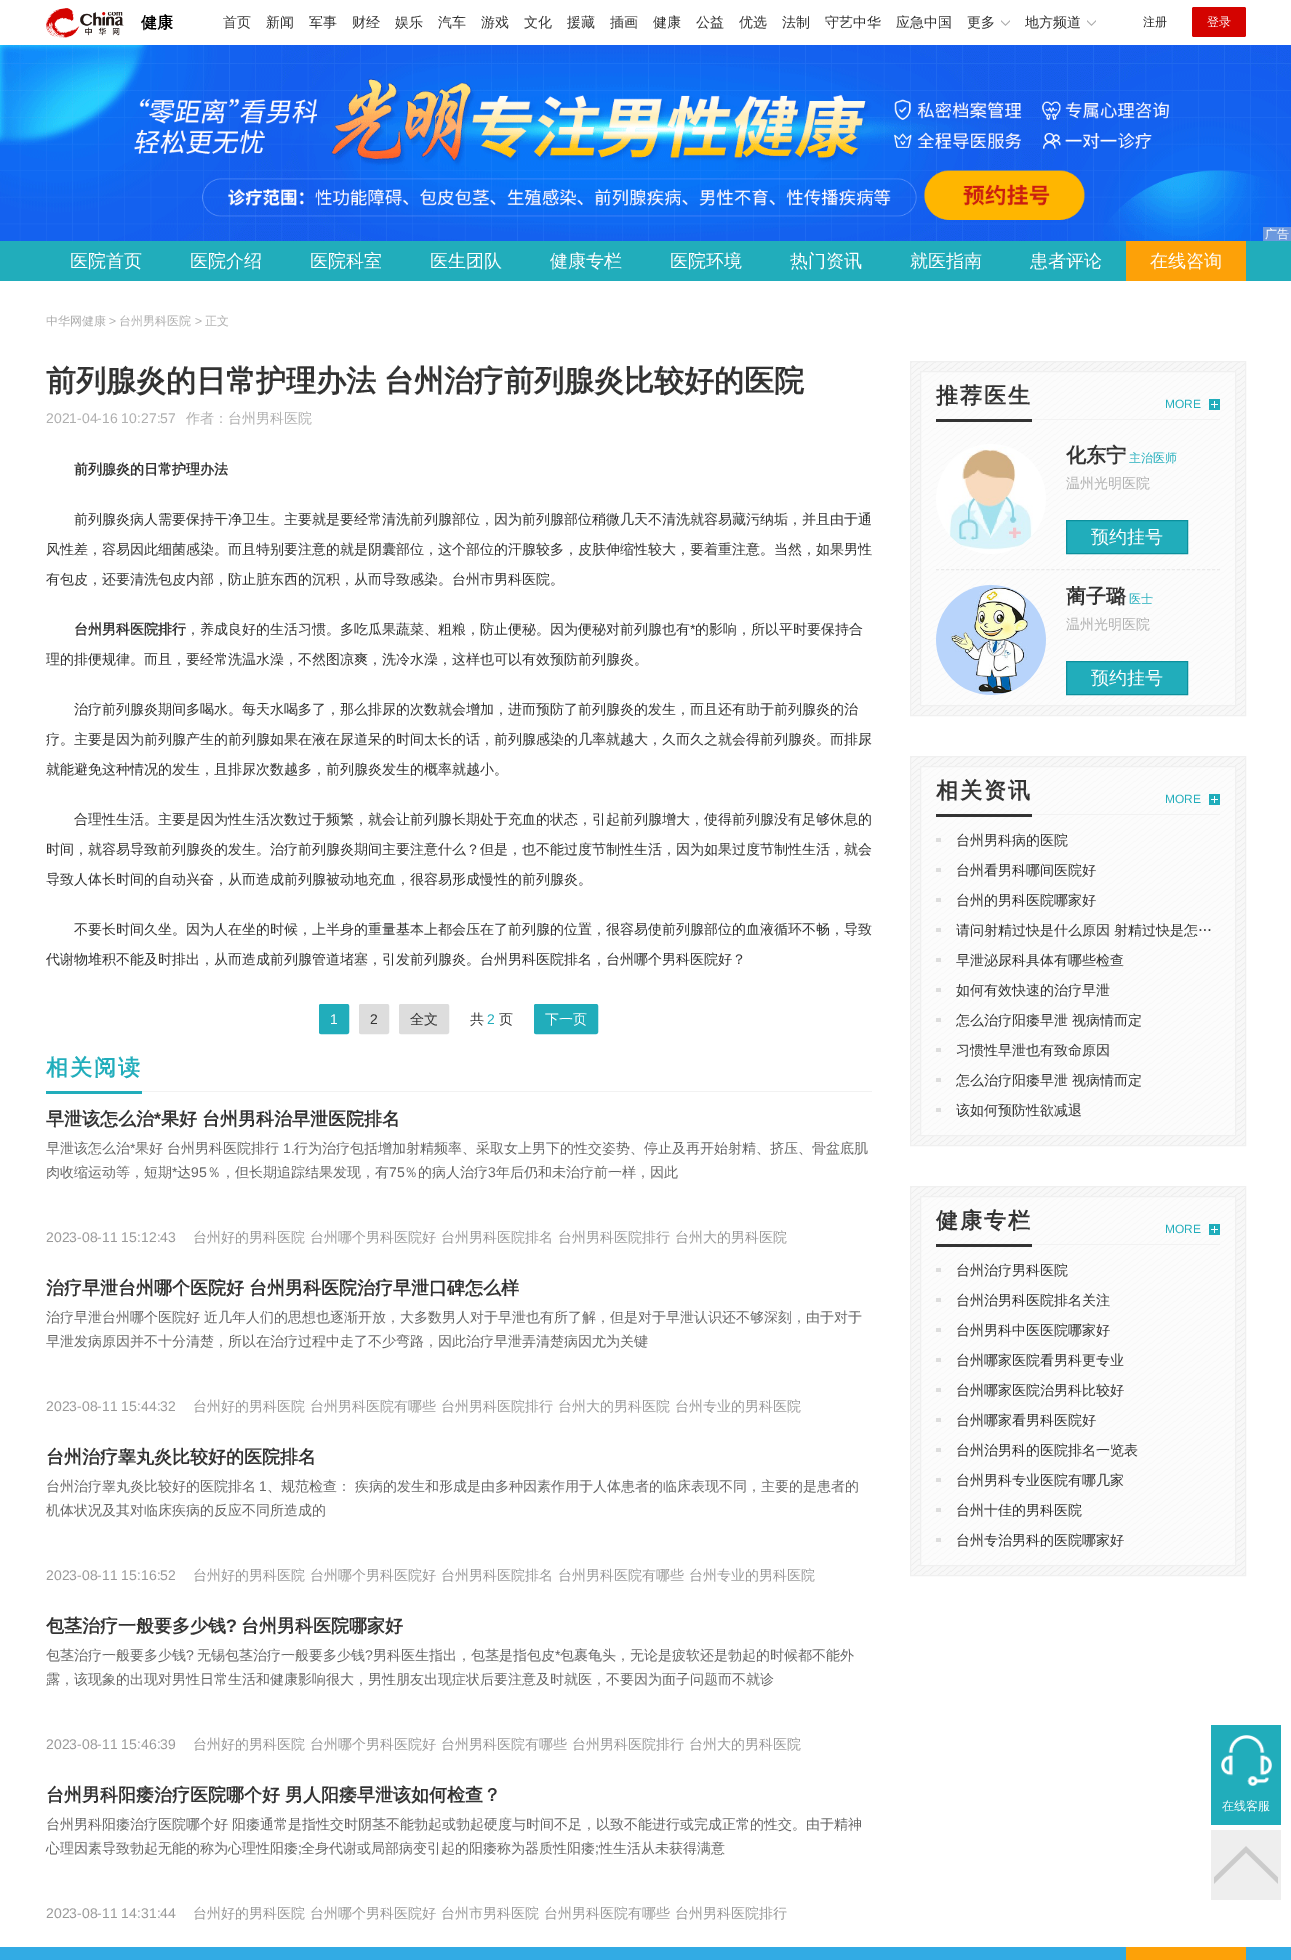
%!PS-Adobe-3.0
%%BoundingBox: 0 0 1291 1960
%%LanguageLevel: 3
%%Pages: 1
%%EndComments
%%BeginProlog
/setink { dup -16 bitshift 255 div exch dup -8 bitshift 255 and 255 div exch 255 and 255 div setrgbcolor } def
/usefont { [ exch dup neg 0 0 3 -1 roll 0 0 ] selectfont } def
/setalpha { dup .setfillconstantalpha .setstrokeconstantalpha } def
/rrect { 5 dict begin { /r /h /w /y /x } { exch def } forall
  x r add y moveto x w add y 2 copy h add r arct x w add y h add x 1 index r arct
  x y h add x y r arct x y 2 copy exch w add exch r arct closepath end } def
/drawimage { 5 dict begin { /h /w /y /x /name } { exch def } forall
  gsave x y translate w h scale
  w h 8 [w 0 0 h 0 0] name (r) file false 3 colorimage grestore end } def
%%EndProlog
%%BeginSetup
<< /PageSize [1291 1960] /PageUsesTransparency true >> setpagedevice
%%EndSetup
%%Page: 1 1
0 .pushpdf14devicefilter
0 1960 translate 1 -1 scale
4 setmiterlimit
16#FFFFFF setink
0 0 1291 1960 rectfill
(img1.raw) 46 8 78 30 drawimage
/WenQuanYiZenHei-Bold 16 usefont
16#000000 setink
141 28 moveto (健康) show
/WenQuanYiZenHei-Medium 14 usefont
16#333333 setink
[
    [(首页) 223 27]
    [(新闻) 266 27]
    [(军事) 309 27]
    [(财经) 352 27]
    [(娱乐) 395 27]
    [(汽车) 438 27]
    [(游戏) 481 27]
    [(文化) 524 27]
    [(援藏) 567 27]
    [(插画) 610 27]
    [(健康) 653 27]
    [(公益) 696 27]
    [(优选) 739 27]
    [(法制) 782 27]
    [(守艺中华) 825 27]
    [(应急中国) 896 27]
    [(更多) 967 27]
] { aload pop moveto show } forall
(img2.raw) 1001 20 9 6 drawimage
1025 27 moveto (地方频道) show
(img2.raw) 1087 20 9 6 drawimage
/WenQuanYiZenHei-Medium 12 usefont
1143 26 moveto (注册) show
16#D40300 setink
1192 7 54 30 2 rrect fill
16#FFFFFF setink
1207 26 moveto (登录) show
(img3.raw) 0 45 1291 196 drawimage
0.5 setalpha
16#C9C9C9 setink
1263 227 28 14 rectfill
1 setalpha
16#FFFFFF setink
1265 238 moveto (广告) show
16#21ADBB setink
0 241 1291 40 rectfill
/WenQuanYiZenHei-Medium 18 usefont
16#FFFFFF setink
[
    [(医院首页) 70 267]
    [(医院介绍) 190 267]
    [(医院科室) 310 267]
    [(医生团队) 430 267]
    [(健康专栏) 550 267]
    [(医院环境) 670 267]
    [(热门资讯) 790 267]
    [(就医指南) 910 267]
    [(患者评论) 1030 267]
] { aload pop moveto show } forall
16#FDA108 setink
1126 241 120 40 rectfill
16#FFFFFF setink
1150 267 moveto (在线咨询) show
/WenQuanYiZenHei-Medium 12 usefont
16#AFAFAF setink
46 325 moveto (中华网健康) show
/LiberationSans-Regular 12 usefont
109 325 moveto (>) show
/WenQuanYiZenHei-Medium 12 usefont
119 325 moveto (台州男科医院) show
/LiberationSans-Regular 12 usefont
195 325 moveto (>) show
/WenQuanYiZenHei-Medium 12 usefont
205 325 moveto (正文) show
/WenQuanYiZenHei-Bold 30 usefont
16#333333 setink
46 391 moveto -1 0 32 (前列腺炎的日常护理办法 台州治疗前列腺炎比较好的医院) widthshow
/LiberationSans-Regular 14 usefont
16#AFAFAF setink
46 423 moveto (2021-04-16 10:27:57) show
/WenQuanYiZenHei-Medium 14 usefont
186 423 moveto (作者：台州男科医院) show
/WenQuanYiZenHei-Bold 14 usefont
16#333333 setink
74 474 moveto (前列腺炎的日常护理办法) show
/WenQuanYiZenHei-Medium 14 usefont
[
    [(前列腺炎病人需要保持干净卫生。主要就是要经常清洗前列腺部位，因为前列腺部位稍微几天不清洗就容易藏污纳垢，并且由于通) 74 524]
    [(风性差，容易因此细菌感染。而且特别要注意的就是阴囊部位，这个部位的汗腺较多，皮肤伸缩性较大，要着重注意。当然，如果男性) 46 554]
    [(有包皮，还要清洗包皮内部，防止脏东西的沉积，从而导致感染。台州市男科医院。) 46 584]
] { aload pop moveto show } forall
/WenQuanYiZenHei-Bold 14 usefont
74 634 moveto (台州男科医院排行) show
/WenQuanYiZenHei-Medium 14 usefont
186 634 moveto (，养成良好的生活习惯。多吃瓜果蔬菜、粗粮，防止便秘。因为便秘对前列腺也有) show
/LiberationSans-Regular 14 usefont
690 634 moveto (*) show
/WenQuanYiZenHei-Medium 14 usefont
695 634 moveto (的影响，所以平时要保持合) show
gsave
46 281 826 1666 rectclip
46 664 moveto (理的排便规律。而且，要经常洗温水澡，不然图凉爽，洗冷水澡，这样也可以有效预防前列腺炎。) show
grestore
[
    [(治疗前列腺炎期间多喝水。每天水喝多了，那么排尿的次数就会增加，进而预防了前列腺炎的发生，而且还有助于前列腺炎的治) 74 714]
    [(疗。主要是因为前列腺产生的前列腺如果在液在尿道呆的时间太长的话，前列腺感染的几率就越大，久而久之就会得前列腺炎。而排尿) 46 744]
    [(就能避免这种情况的发生，且排尿次数越多，前列腺炎发生的概率就越小。) 46 774]
    [(合理性生活。主要是因为性生活次数过于频繁，就会让前列腺长期处于充血的状态，引起前列腺增大，使得前列腺没有足够休息的) 74 824]
    [(时间，就容易导致前列腺炎的发生。治疗前列腺炎期间主要注意什么？但是，也不能过度节制性生活，因为如果过度节制性生活，就会) 46 854]
    [(导致人体长时间的自动兴奋，从而造成前列腺被动地充血，很容易形成慢性的前列腺炎。) 46 884]
    [(不要长时间久坐。因为人在坐的时候，上半身的重量基本上都会压在了前列腺的位置，很容易使前列腺部位的血液循环不畅，导致) 74 934]
    [(代谢物堆积不能及时排出，从而造成前列腺管道堵塞，引发前列腺炎。台州男科医院排名，台州哪个男科医院好？) 46 964]
] { aload pop moveto show } forall
16#21ADBB setink
319.5 1004.5 29 29 1.5 rrect gsave fill grestore
stroke
/LiberationSans-Regular 14 usefont
16#FFFFFF setink
330 1024 moveto (1) show
16#DDDDDD setink
359.5 1004.5 29 29 1.5 rrect gsave fill grestore
stroke
16#333333 setink
370 1024 moveto (2) show
16#DDDDDD setink
399.5 1004.5 49 29 1.5 rrect gsave fill grestore
stroke
/WenQuanYiZenHei-Medium 14 usefont
16#333333 setink
410 1024 moveto (全文) show
470 1024 moveto (共) show
/LiberationSans-Regular 14 usefont
16#21ADBB setink
487 1024 moveto (2) show
/WenQuanYiZenHei-Medium 14 usefont
16#333333 setink
499 1024 moveto (页) show
16#21ADBB setink
534.5 1004.5 63 29 1.5 rrect gsave fill grestore
stroke
16#FFFFFF setink
545 1024 moveto (下一页) show
16#F2F2F2 setink
142 1091 730 1 rectfill
16#21ADBB setink
46 1091 96 3 rectfill
/WenQuanYiZenHei-Bold 22 usefont
46 1075 moveto 2 0 (相关阅读) ashow
/WenQuanYiZenHei-Bold 18 usefont
16#333333 setink
46 1125 moveto (早泄该怎么治) show
/LiberationSans-Bold 18 usefont
154 1125 moveto (*) show
/WenQuanYiZenHei-Bold 18 usefont
161 1125 moveto (果好 台州男科治早泄医院排名) show
/WenQuanYiZenHei-Medium 14 usefont
16#666666 setink
46 1153 moveto (早泄该怎么治) show
/LiberationSans-Regular 14 usefont
130 1153 moveto (*) show
/WenQuanYiZenHei-Medium 14 usefont
135 1153 moveto (果好 台州男科医院排行) show
/LiberationSans-Regular 14 usefont
283 1153 moveto (1.) show
/WenQuanYiZenHei-Medium 14 usefont
294 1153 moveto (行为治疗包括增加射精频率、采取女上男下的性交姿势、停止及再开始射精、挤压、骨盆底肌) show
46 1177 moveto (肉收缩运动等，短期) show
/LiberationSans-Regular 14 usefont
172 1177 moveto (*) show
/WenQuanYiZenHei-Medium 14 usefont
177 1177 moveto (达) show
/LiberationSans-Regular 14 usefont
191 1177 moveto (95) show
/WenQuanYiZenHei-Medium 14 usefont
207 1177 moveto (％，但长期追踪结果发现，有) show
/LiberationSans-Regular 14 usefont
389 1177 moveto (75) show
/WenQuanYiZenHei-Medium 14 usefont
404 1177 moveto (％的病人治疗) show
/LiberationSans-Regular 14 usefont
488 1177 moveto (3) show
/WenQuanYiZenHei-Medium 14 usefont
496 1177 moveto (年后仍和未治疗前一样，因此) show
/LiberationSans-Regular 14 usefont
16#999999 setink
46 1242 moveto (2023-08-11 15:12:43) show
/WenQuanYiZenHei-Medium 14 usefont
[
    [(台州好的男科医院) 193 1242]
    [(台州哪个男科医院好) 310 1242]
    [(台州男科医院排名) 441 1242]
    [(台州男科医院排行) 558 1242]
    [(台州大的男科医院) 675 1242]
] { aload pop moveto show } forall
/WenQuanYiZenHei-Bold 18 usefont
16#333333 setink
46 1294 moveto (治疗早泄台州哪个医院好 台州男科医院治疗早泄口碑怎么样) show
/WenQuanYiZenHei-Medium 14 usefont
16#666666 setink
46 1322 moveto (治疗早泄台州哪个医院好 近几年人们的思想也逐渐开放，大多数男人对于早泄也有所了解，但是对于早泄认识还不够深刻，由于对于) show
46 1346 moveto (早泄发病原因并不十分清楚，所以在治疗过程中走了不少弯路，因此治疗早泄弄清楚病因尤为关键) show
/LiberationSans-Regular 14 usefont
16#999999 setink
46 1411 moveto (2023-08-11 15:44:32) show
/WenQuanYiZenHei-Medium 14 usefont
[
    [(台州好的男科医院) 193 1411]
    [(台州男科医院有哪些) 310 1411]
    [(台州男科医院排行) 441 1411]
    [(台州大的男科医院) 558 1411]
    [(台州专业的男科医院) 675 1411]
] { aload pop moveto show } forall
/WenQuanYiZenHei-Bold 18 usefont
16#333333 setink
46 1463 moveto (台州治疗睾丸炎比较好的医院排名) show
/WenQuanYiZenHei-Medium 14 usefont
16#666666 setink
46 1491 moveto (台州治疗睾丸炎比较好的医院排名) show
/LiberationSans-Regular 14 usefont
259 1491 moveto (1) show
/WenQuanYiZenHei-Medium 14 usefont
267 1491 moveto (、规范检查： 疾病的发生和形成是由多种因素作用于人体患者的临床表现不同，主要的是患者的) show
46 1515 moveto (机体状况及其对临床疾病的反应不同所造成的) show
/LiberationSans-Regular 14 usefont
16#999999 setink
46 1580 moveto (2023-08-11 15:16:52) show
/WenQuanYiZenHei-Medium 14 usefont
[
    [(台州好的男科医院) 193 1580]
    [(台州哪个男科医院好) 310 1580]
    [(台州男科医院排名) 441 1580]
    [(台州男科医院有哪些) 558 1580]
    [(台州专业的男科医院) 689 1580]
] { aload pop moveto show } forall
/WenQuanYiZenHei-Bold 18 usefont
16#333333 setink
46 1632 moveto (包茎治疗一般要多少钱) show
/LiberationSans-Bold 18 usefont
226 1632 moveto (?) show
/WenQuanYiZenHei-Bold 18 usefont
241 1632 moveto (台州男科医院哪家好) show
/WenQuanYiZenHei-Medium 14 usefont
16#666666 setink
46 1660 moveto (包茎治疗一般要多少钱) show
/LiberationSans-Regular 14 usefont
186 1660 moveto (?) show
/WenQuanYiZenHei-Medium 14 usefont
197 1660 moveto (无锡包茎治疗一般要多少钱) show
/LiberationSans-Regular 14 usefont
365 1660 moveto (?) show
/WenQuanYiZenHei-Medium 14 usefont
373 1660 moveto (男科医生指出，包茎是指包皮) show
/LiberationSans-Regular 14 usefont
555 1660 moveto (*) show
/WenQuanYiZenHei-Medium 14 usefont
560 1660 moveto (包裹龟头，无论是疲软还是勃起的时候都不能外) show
46 1684 moveto (露，该现象的出现对男性日常生活和健康影响很大，男性朋友出现症状后要注意及时就医，不要因为面子问题而不就诊) show
/LiberationSans-Regular 14 usefont
16#999999 setink
46 1749 moveto (2023-08-11 15:46:39) show
/WenQuanYiZenHei-Medium 14 usefont
[
    [(台州好的男科医院) 193 1749]
    [(台州哪个男科医院好) 310 1749]
    [(台州男科医院有哪些) 441 1749]
    [(台州男科医院排行) 572 1749]
    [(台州大的男科医院) 689 1749]
] { aload pop moveto show } forall
/WenQuanYiZenHei-Bold 18 usefont
16#333333 setink
46 1801 moveto (台州男科阳痿治疗医院哪个好 男人阳痿早泄该如何检查？) show
/WenQuanYiZenHei-Medium 14 usefont
16#666666 setink
46 1829 moveto (台州男科阳痿治疗医院哪个好 阳痿通常是指性交时阴茎不能勃起或勃起硬度与时间不足，以致不能进行或完成正常的性交。由于精神) show
46 1853 moveto (心理因素导致勃起无能的称为心理性阳痿) show
/LiberationSans-Regular 14 usefont
298 1853 moveto (;) show
/WenQuanYiZenHei-Medium 14 usefont
301 1853 moveto (全身代谢或局部病变引起的阳痿称为器质性阳痿) show
/LiberationSans-Regular 14 usefont
595 1853 moveto (;) show
/WenQuanYiZenHei-Medium 14 usefont
599 1853 moveto (性生活从未获得满意) show
/LiberationSans-Regular 14 usefont
16#999999 setink
46 1918 moveto (2023-08-11 14:31:44) show
/WenQuanYiZenHei-Medium 14 usefont
[
    [(台州好的男科医院) 193 1918]
    [(台州哪个男科医院好) 310 1918]
    [(台州市男科医院) 441 1918]
    [(台州男科医院有哪些) 544 1918]
    [(台州男科医院排行) 675 1918]
] { aload pop moveto show } forall
(img4.raw) 911 362 334 353 drawimage
16#F0F0F0 setink
910.5 361.5 335 354 rectstroke
0.6 setalpha
16#FFFFFF setink
920.5 371.5 moveto 1235.5 371.5 lineto 1235.5 705.5 lineto 920.5 705.5 lineto closepath fill
1 setalpha
16#F0F0F0 setink
920.5 371.5 moveto 1235.5 371.5 lineto 1235.5 705.5 lineto 920.5 705.5 lineto closepath stroke
16#F2F2F2 setink
1032 419 188 1 rectfill
16#333333 setink
936 419 96 3 rectfill
/WenQuanYiZenHei-Bold 22 usefont
936 403 moveto 2 0 (推荐医生) ashow
/LiberationSans-Regular 12 usefont
16#21ADBB setink
1165 408 moveto (MORE) show
(img5.raw) 1209 399 11 11 drawimage
(img6.raw) 936 444 110 110 drawimage
/WenQuanYiZenHei-Bold 20 usefont
16#333333 setink
1066 462 moveto (化东宁) show
/WenQuanYiZenHei-Medium 12 usefont
16#21ADBB setink
1129 462 moveto (主治医师) show
/WenQuanYiZenHei-Medium 14 usefont
16#AFAFAF setink
1066 488 moveto (温州光明医院) show
16#21ADBB setink
1066.5 520.5 moveto 1187.5 520.5 lineto 1187.5 553.5 lineto 1066.5 553.5 lineto closepath gsave fill grestore
16#0C909D setink
stroke
/WenQuanYiZenHei-Medium 18 usefont
16#FFFFFF setink
1091 543 moveto (预约挂号) show
16#EAEAEA setink
[3 2.02] 0 setdash
936 569.5 moveto 1220 569.5 lineto stroke
(img7.raw) 936 585 110 110 drawimage
/WenQuanYiZenHei-Bold 20 usefont
16#333333 setink
1066 603 moveto (蔺子璐) show
/WenQuanYiZenHei-Medium 12 usefont
16#21ADBB setink
1129 603 moveto (医士) show
/WenQuanYiZenHei-Medium 14 usefont
16#AFAFAF setink
1066 629 moveto (温州光明医院) show
16#21ADBB setink
1066.5 661.5 moveto 1187.5 661.5 lineto 1187.5 694.5 lineto 1066.5 694.5 lineto closepath gsave fill grestore
16#0C909D setink
[] 0 setdash
stroke
/WenQuanYiZenHei-Medium 18 usefont
16#FFFFFF setink
1091 684 moveto (预约挂号) show
(img8.raw) 911 757 334 388 drawimage
16#F0F0F0 setink
910.5 756.5 335 389 rectstroke
0.6 setalpha
16#FFFFFF setink
920.5 766.5 moveto 1235.5 766.5 lineto 1235.5 1135.5 lineto 920.5 1135.5 lineto closepath fill
1 setalpha
16#F0F0F0 setink
920.5 766.5 moveto 1235.5 766.5 lineto 1235.5 1135.5 lineto 920.5 1135.5 lineto closepath stroke
16#F2F2F2 setink
1032 814 188 1 rectfill
16#333333 setink
936 814 96 3 rectfill
/WenQuanYiZenHei-Bold 22 usefont
936 798 moveto 2 0 (相关资讯) ashow
/LiberationSans-Regular 12 usefont
16#21ADBB setink
1165 803 moveto (MORE) show
(img5.raw) 1209 794 11 11 drawimage
16#DDDDDD setink
936 838 5 4 rectfill
/WenQuanYiZenHei-Medium 14 usefont
16#333333 setink
956 845 moveto (台州男科病的医院) show
16#DDDDDD setink
936 868 5 4 rectfill
16#333333 setink
956 875 moveto (台州看男科哪间医院好) show
16#DDDDDD setink
936 898 5 4 rectfill
16#333333 setink
956 905 moveto (台州的男科医院哪家好) show
16#DDDDDD setink
936 928 5 4 rectfill
16#333333 setink
956 935 moveto (请问射精过快是什么原因 射精过快是怎…) show
16#DDDDDD setink
936 958 5 4 rectfill
16#333333 setink
956 965 moveto (早泄泌尿科具体有哪些检查) show
16#DDDDDD setink
936 988 5 4 rectfill
16#333333 setink
956 995 moveto (如何有效快速的治疗早泄) show
16#DDDDDD setink
936 1018 5 4 rectfill
16#333333 setink
956 1025 moveto (怎么治疗阳痿早泄 视病情而定) show
16#DDDDDD setink
936 1048 5 4 rectfill
16#333333 setink
956 1055 moveto (习惯性早泄也有致命原因) show
16#DDDDDD setink
936 1078 5 4 rectfill
16#333333 setink
956 1085 moveto (怎么治疗阳痿早泄 视病情而定) show
16#DDDDDD setink
936 1108 5 4 rectfill
16#333333 setink
956 1115 moveto (该如何预防性欲减退) show
(img8.raw) 911 1187 334 388 drawimage
16#F0F0F0 setink
910.5 1186.5 335 389 rectstroke
0.6 setalpha
16#FFFFFF setink
920.5 1196.5 moveto 1235.5 1196.5 lineto 1235.5 1565.5 lineto 920.5 1565.5 lineto closepath fill
1 setalpha
16#F0F0F0 setink
920.5 1196.5 moveto 1235.5 1196.5 lineto 1235.5 1565.5 lineto 920.5 1565.5 lineto closepath stroke
16#F2F2F2 setink
1032 1244 188 1 rectfill
16#333333 setink
936 1244 96 3 rectfill
/WenQuanYiZenHei-Bold 22 usefont
936 1228 moveto 2 0 (健康专栏) ashow
/LiberationSans-Regular 12 usefont
16#21ADBB setink
1165 1233 moveto (MORE) show
(img5.raw) 1209 1224 11 11 drawimage
16#DDDDDD setink
936 1268 5 4 rectfill
/WenQuanYiZenHei-Medium 14 usefont
16#333333 setink
956 1275 moveto (台州治疗男科医院) show
16#DDDDDD setink
936 1298 5 4 rectfill
16#333333 setink
956 1305 moveto (台州治男科医院排名关注) show
16#DDDDDD setink
936 1328 5 4 rectfill
16#333333 setink
956 1335 moveto (台州男科中医医院哪家好) show
16#DDDDDD setink
936 1358 5 4 rectfill
16#333333 setink
956 1365 moveto (台州哪家医院看男科更专业) show
16#DDDDDD setink
936 1388 5 4 rectfill
16#333333 setink
956 1395 moveto (台州哪家医院治男科比较好) show
16#DDDDDD setink
936 1418 5 4 rectfill
16#333333 setink
956 1425 moveto (台州哪家看男科医院好) show
16#DDDDDD setink
936 1448 5 4 rectfill
16#333333 setink
956 1455 moveto (台州治男科的医院排名一览表) show
16#DDDDDD setink
936 1478 5 4 rectfill
16#333333 setink
956 1485 moveto (台州男科专业医院有哪几家) show
16#DDDDDD setink
936 1508 5 4 rectfill
16#333333 setink
956 1515 moveto (台州十佳的男科医院) show
16#DDDDDD setink
936 1538 5 4 rectfill
16#333333 setink
956 1545 moveto (台州专治男科的医院哪家好) show
16#21ADBB setink
1211 1725 70 100 rectfill
(img9.raw) 1221 1735 51 51 drawimage
/WenQuanYiZenHei-Medium 12 usefont
16#FFFFFF setink
1222 1810 moveto (在线客服) show
16#EEEEEE setink
1211 1830 70 70 rectfill
(img10.raw) 1214 1846 64 38 drawimage
16#32ABE4 setink
0 1947 1291 13 rectfill
16#FDA108 setink
1126 1947 120 13 rectfill
.poppdf14devicefilter showpage
%%EOF
